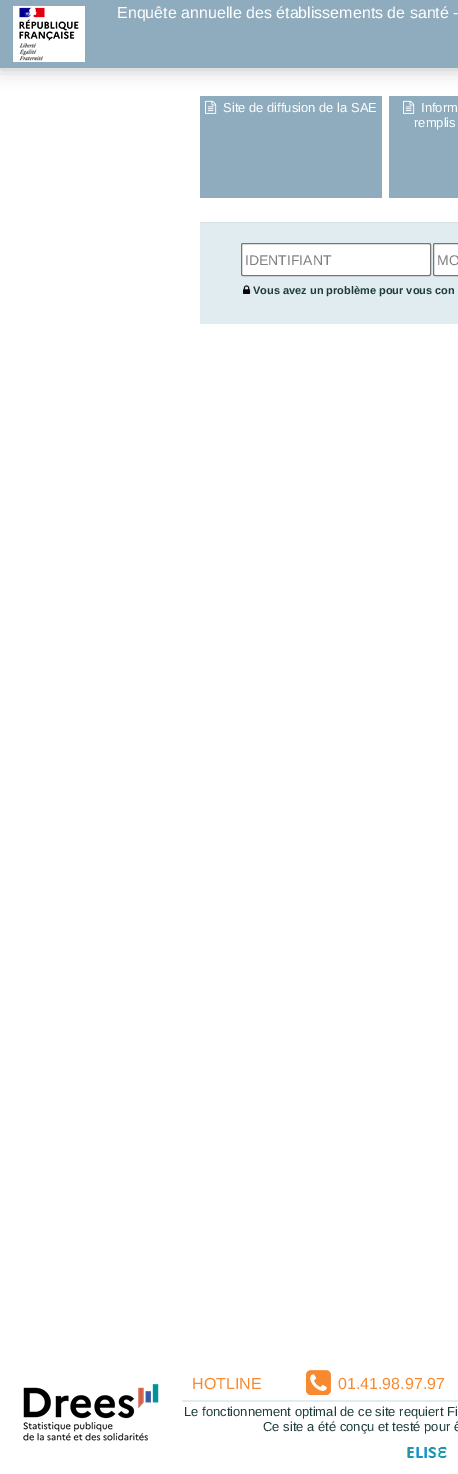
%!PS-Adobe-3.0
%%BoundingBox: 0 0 458 1474
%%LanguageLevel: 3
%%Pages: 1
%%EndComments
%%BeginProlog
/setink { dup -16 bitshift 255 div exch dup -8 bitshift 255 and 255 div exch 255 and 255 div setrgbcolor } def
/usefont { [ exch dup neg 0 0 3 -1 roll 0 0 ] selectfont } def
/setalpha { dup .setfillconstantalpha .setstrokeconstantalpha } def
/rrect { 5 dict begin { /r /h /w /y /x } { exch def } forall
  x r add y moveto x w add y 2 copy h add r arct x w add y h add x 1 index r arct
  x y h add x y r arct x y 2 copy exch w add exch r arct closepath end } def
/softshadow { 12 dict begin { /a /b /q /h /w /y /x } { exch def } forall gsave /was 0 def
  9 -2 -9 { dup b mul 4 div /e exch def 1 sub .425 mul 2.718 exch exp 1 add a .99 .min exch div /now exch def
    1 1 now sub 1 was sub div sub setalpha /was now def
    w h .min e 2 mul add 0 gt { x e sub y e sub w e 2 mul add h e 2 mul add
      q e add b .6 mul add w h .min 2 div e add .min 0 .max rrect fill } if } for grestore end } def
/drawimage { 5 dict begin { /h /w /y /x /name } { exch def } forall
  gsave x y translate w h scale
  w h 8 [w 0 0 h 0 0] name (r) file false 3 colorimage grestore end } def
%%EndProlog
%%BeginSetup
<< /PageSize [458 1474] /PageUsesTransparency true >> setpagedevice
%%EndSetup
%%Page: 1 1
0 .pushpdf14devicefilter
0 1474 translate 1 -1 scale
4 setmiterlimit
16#FFFFFF setink
0 0 458 1474 rectfill
16#000000 setink
0 1 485 68 0 9 0.25 softshadow
16#8FACBE setink
0 0 458 68 rectfill
(img1.raw) 13 6 72 56 drawimage
/LiberationSans-Regular 16 usefont
16#FFFFFF setink
117 18 moveto (Enquête annuelle des établissements de santé -) show
16#8FACBE setink
200 96 182 102 rectfill
(img2.raw) 205 100 12 14 drawimage
/LiberationSans-Regular 13 usefont
16#FFFFFF setink
223 112 moveto (Site de diffusion de la SAE) show
16#8FACBE setink
389 96 69 102 rectfill
(img2.raw) 403 100 12 14 drawimage
16#FFFFFF setink
421 112 moveto (Inform) show
414 127 moveto (remplis) show
16#E1ECF1 setink
200 223 258 101 rectfill
16#D6E0E5 setink
200 222 258 1 rectfill
16#FFFFFF setink
241.5 243.5 189 32 1.5 rrect gsave fill grestore
16#767676 setink
stroke
/LiberationSans-Regular 14 usefont
16#808080 setink
245 265 moveto (IDENTIFIANT) show
16#FFFFFF setink
433.5 243.5 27 32 1.5 rrect gsave fill grestore
16#767676 setink
stroke
16#808080 setink
437 265 moveto (MO) show
(img3.raw) 243 285 8 9 drawimage
/LiberationSans-Bold 11 usefont
16#1E3C3C setink
253 294 moveto (Vous avez un problème pour vous con) show
(img4.raw) 23 1384 136 57 drawimage
16#E1ECF1 setink
182 1400 276 2 rectfill
/LiberationSans-Regular 16 usefont
16#F78A31 setink
192 1389 moveto (HOTLINE) show
(img5.raw) 306 1370 25 26 drawimage
338 1389 moveto (01.41.98.97.97) show
/LiberationSans-Regular 13 usefont
16#1E3C3C setink
184 1416 moveto (Le fonctionnement optimal de ce site requiert Fi) show
263 1431 moveto (Ce site a été conçu et testé pour ê) show
(img6.raw) 406 1447 41 11 drawimage
.poppdf14devicefilter showpage
%%EOF
